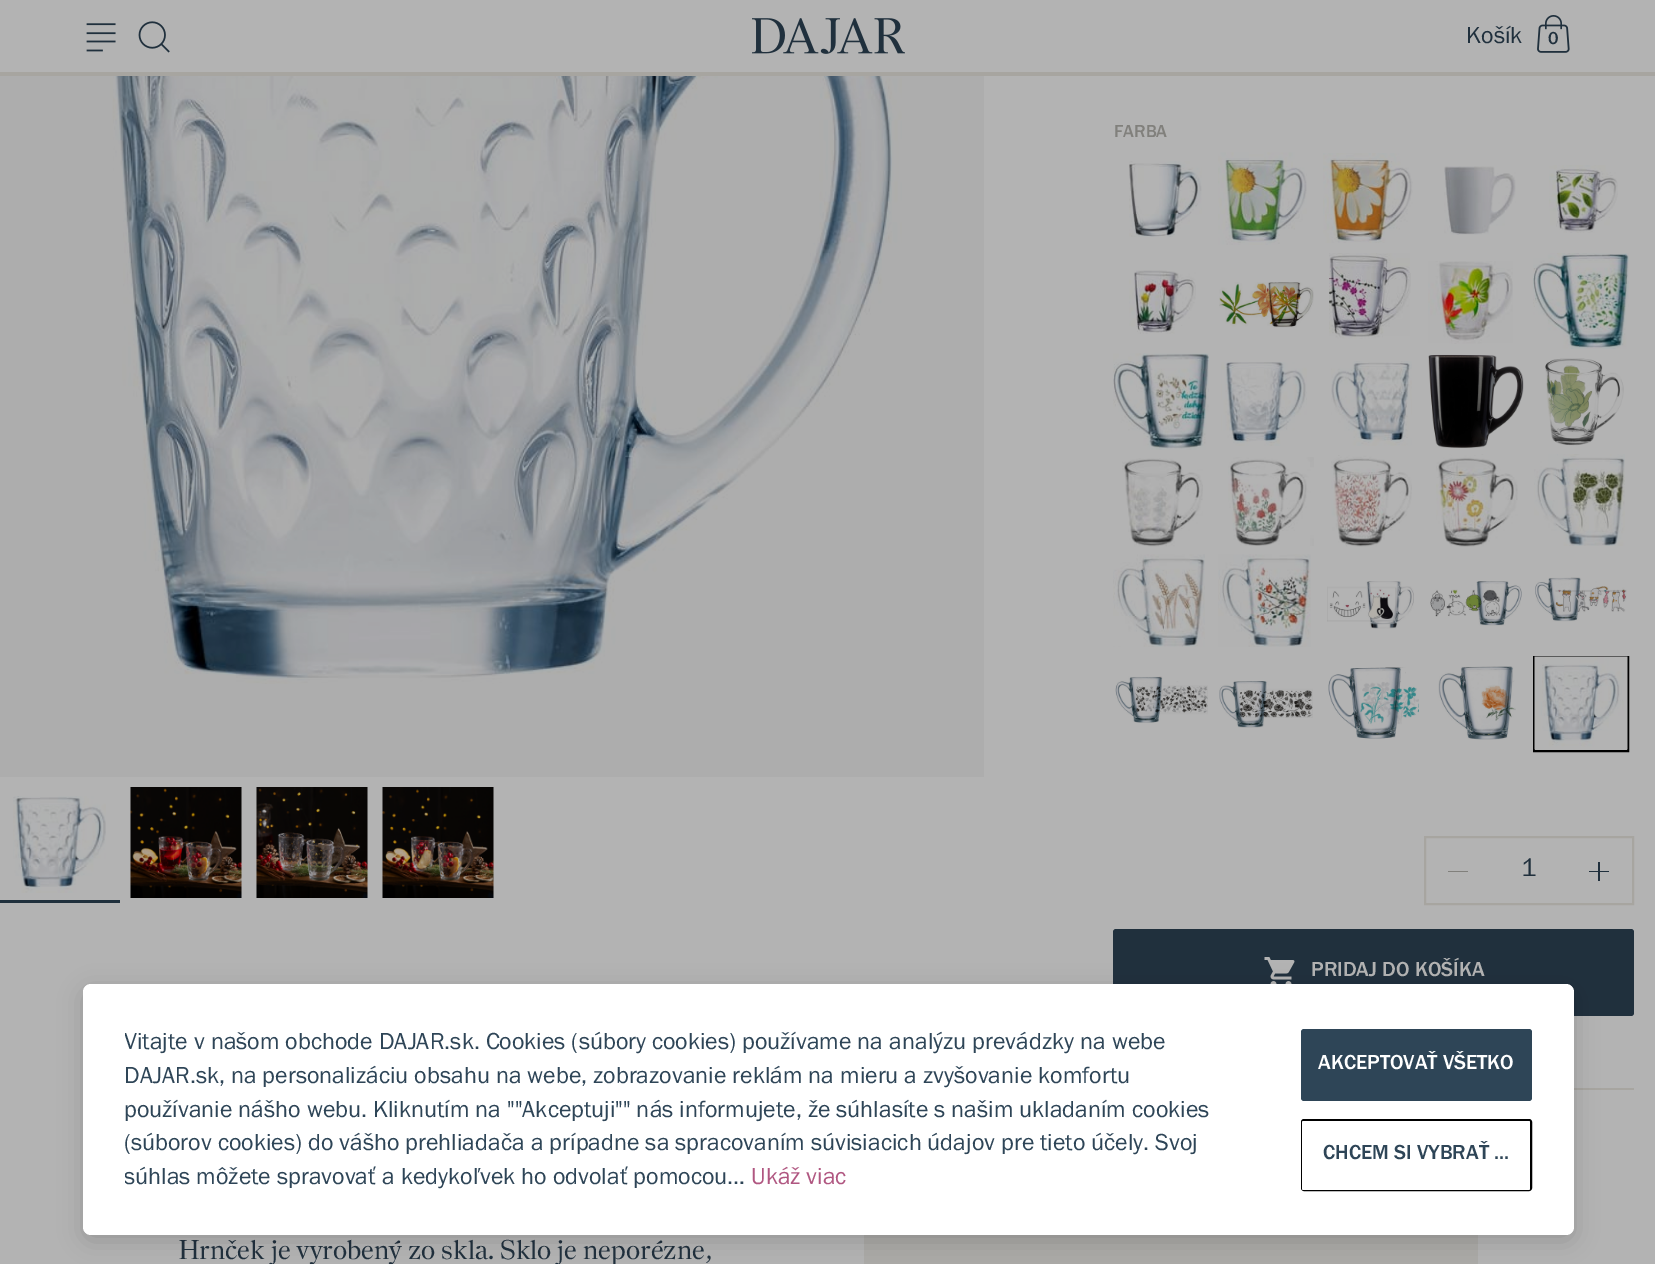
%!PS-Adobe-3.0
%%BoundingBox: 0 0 1655 1264
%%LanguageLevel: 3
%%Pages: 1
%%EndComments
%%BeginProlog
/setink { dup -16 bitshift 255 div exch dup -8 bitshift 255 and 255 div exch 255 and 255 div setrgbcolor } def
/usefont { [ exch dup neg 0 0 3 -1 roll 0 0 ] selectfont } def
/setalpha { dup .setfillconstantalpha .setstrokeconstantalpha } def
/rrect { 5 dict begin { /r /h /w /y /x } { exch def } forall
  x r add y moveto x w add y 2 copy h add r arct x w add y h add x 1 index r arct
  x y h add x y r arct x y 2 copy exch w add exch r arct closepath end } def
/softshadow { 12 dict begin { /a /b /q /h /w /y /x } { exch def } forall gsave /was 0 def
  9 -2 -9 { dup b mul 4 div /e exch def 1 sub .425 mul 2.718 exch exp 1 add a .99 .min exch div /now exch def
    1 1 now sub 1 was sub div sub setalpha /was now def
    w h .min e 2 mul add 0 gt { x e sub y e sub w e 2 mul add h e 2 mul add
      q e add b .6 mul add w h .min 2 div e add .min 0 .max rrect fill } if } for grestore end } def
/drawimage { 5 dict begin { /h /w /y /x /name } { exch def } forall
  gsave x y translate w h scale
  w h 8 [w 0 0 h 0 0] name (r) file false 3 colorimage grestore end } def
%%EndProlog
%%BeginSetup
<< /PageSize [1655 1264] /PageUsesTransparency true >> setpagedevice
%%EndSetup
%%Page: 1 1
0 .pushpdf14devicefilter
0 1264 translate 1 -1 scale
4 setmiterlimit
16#B3B3B3 setink
0 0 1655 1264 rectfill
16#ADADAD setink
0 76 984 701 rectfill
(img1.raw) 86 23 30 29 drawimage
(img2.raw) 138 21 32 32 drawimage
(img3.raw) 752 18 153 36 drawimage
/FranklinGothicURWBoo-Regular 24 usefont
16#20303D setink
1466 43 moveto (Košík) show
(img4.raw) 1537 15 33 38 drawimage
/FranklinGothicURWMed-Regular 18 usefont
1548 44 moveto (0) show
16#A7A5A0 setink
0 72 1655 4 rectfill
(img5.raw) 110 76 792 608 drawimage
(img6.raw) 13 796 93 97 drawimage
(img7.raw) 130 787 112 111 drawimage
(img8.raw) 256 787 112 111 drawimage
(img9.raw) 382 787 112 111 drawimage
16#20303D setink
0 900 120 3 rectfill
16#81807C setink
1114 137 moveto (FARBA) show
(img10.raw) 1129 161 73 76 drawimage
(img11.raw) 1218 152 89 93 drawimage
(img12.raw) 1323 153 90 90 drawimage
(img13.raw) 1444 166 72 69 drawimage
(img14.raw) 1549 165 69 68 drawimage
(img15.raw) 1129 270 67 64 drawimage
(img16.raw) 1219 282 95 46 drawimage
(img17.raw) 1329 253 82 86 drawimage
(img18.raw) 1428 261 85 83 drawimage
(img19.raw) 1533 253 96 96 drawimage
(img20.raw) 1113 353 96 97 drawimage
(img21.raw) 1221 362 86 84 drawimage
(img22.raw) 1331 361 81 85 drawimage
(img23.raw) 1428 354 96 94 drawimage
(img24.raw) 1545 358 79 88 drawimage
(img25.raw) 1122 458 81 89 drawimage
(img26.raw) 1228 457 86 89 drawimage
(img27.raw) 1331 455 81 92 drawimage
(img28.raw) 1436 454 82 93 drawimage
(img29.raw) 1534 454 91 92 drawimage
(img30.raw) 1113 554 92 93 drawimage
(img31.raw) 1218 554 93 93 drawimage
(img32.raw) 1327 581 87 48 drawimage
(img33.raw) 1430 581 92 45 drawimage
(img34.raw) 1535 577 92 45 drawimage
(img35.raw) 1115 676 93 47 drawimage
(img36.raw) 1219 681 94 47 drawimage
(img37.raw) 1328 667 91 72 drawimage
(img38.raw) 1438 666 78 74 drawimage
16#000000 setink
2 setlinewidth
1534 657 94 94 rectstroke
(img39.raw) 1534 656 94 94 drawimage
16#A7A5A0 setink
1425 837 208 67 rectstroke
16#81807C setink
1448 871 20 1 rectfill
/FranklinGothicURWBoo-Regular 26 usefont
16#20303D setink
1521 876 moveto (1) show
1589 871 20 1 rectfill
1598 862 2 19 rectfill
1113 929 521 87 3 rrect fill
(img40.raw) 1264 957 31 27 drawimage
/FranklinGothicURWMed-Regular 21 usefont
16#B3B3B3 setink
1311 976 moveto (PRIDAJ DO KOŠÍKA) show
16#A7A5A0 setink
1574 1088 60 2 rectfill
/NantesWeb-Regular 27 usefont
16#20303D setink
179 1259 moveto (Hrnček je vyrobený zo skla. Sklo je neporézne,) show
16#ABAAA7 setink
864 1235 614 29 rectfill
16#000000 setink
83 990 1491 251 8 12 0.16 softshadow
16#FFFFFF setink
83 984 1491 251 8 rrect fill
gsave
125 1026 1126 168 rectclip
/FranklinGothicURWBoo-Regular 24 usefont
16#2E4557 setink
124 1049 moveto (Vitajte v našom obchode DAJAR.sk. Cookies \(súbory cookies\) používame na analýzu prevádzky na webe) show
grestore
/FranklinGothicURWBoo-Regular 24 usefont
16#2E4557 setink
[
    [(DAJAR.sk, na personalizáciu obsahu na webe, zobrazovanie reklám na mieru a zvyšovanie komfortu) 124 1083]
    [(používanie nášho webu. Kliknutím na ""Akceptuji"" nás informujete, že súhlasíte s našim ukladaním cookies) 124 1117]
    [(\(súborov cookies\) do vášho prehliadača a prípadne sa spracovaním súvisiacich údajov pre tieto účely. Svoj) 124 1150]
] { aload pop moveto show } forall
gsave
125 1026 1126 168 rectclip
124 1184 moveto (súhlas môžete spravovať a kedykoľvek ho odvolať pomocou…) show
grestore
16#B05781 setink
751 1184 moveto (Ukáž viac) show
16#2E4557 setink
1301 1029 231 72 3 rrect fill
/FranklinGothicURWMed-Regular 21 usefont
16#FFFFFF setink
1318 1069 moveto (AKCEPTOVAŤ VŠETKO) show
16#000000 setink
1302 1120 229 70 2 rrect stroke
16#FFFFFF setink
1302 1121 228 69 1.5 rrect fill
16#2E4557 setink
1323 1159 moveto (CHCEM SI VYBRAŤ ...) show
.poppdf14devicefilter showpage
%%EOF
